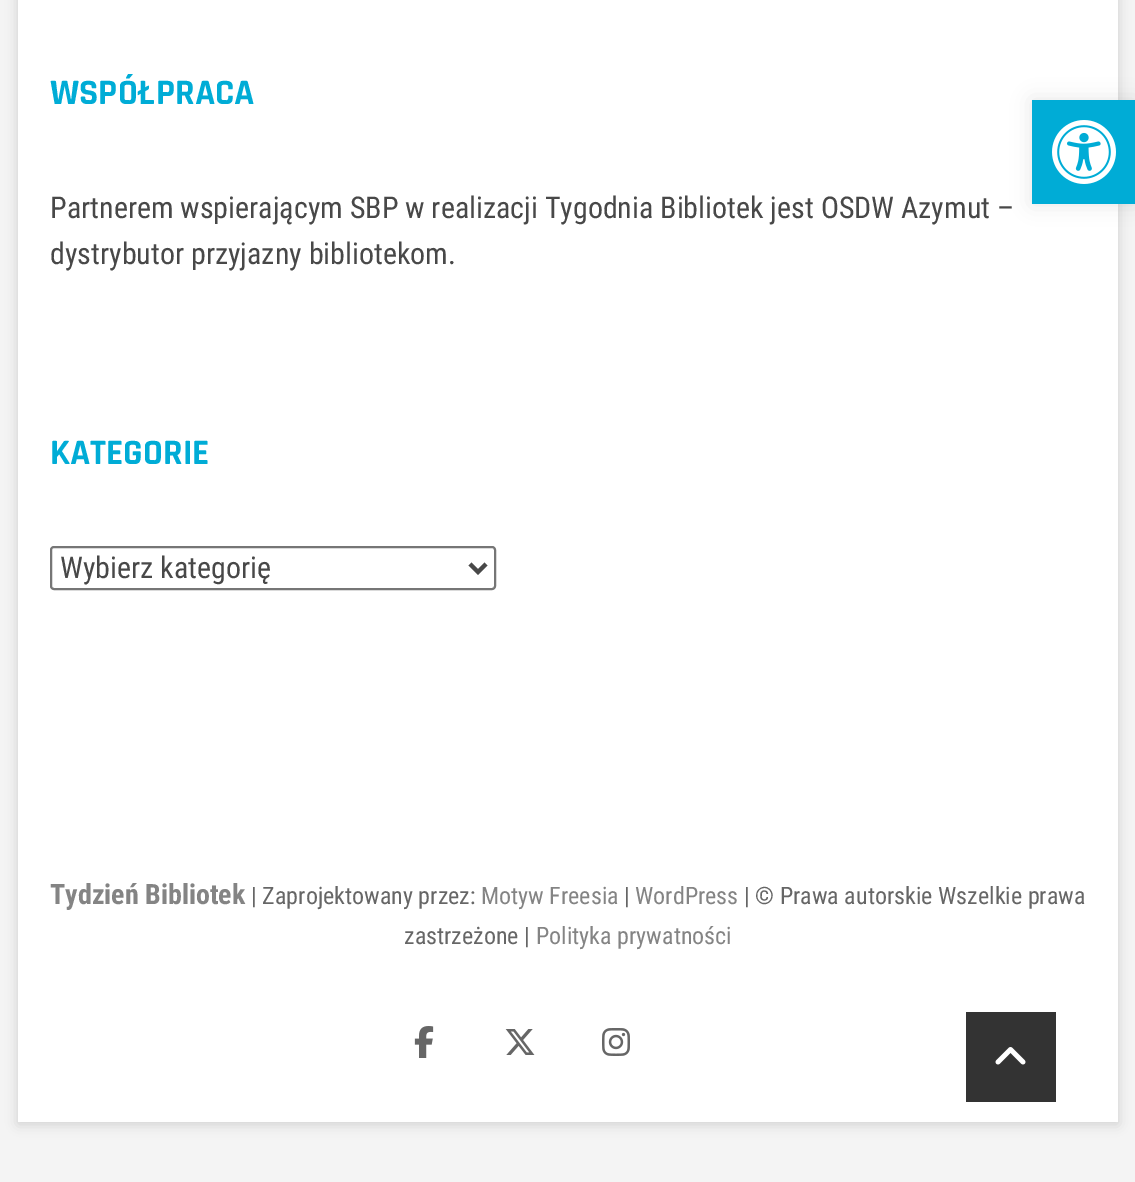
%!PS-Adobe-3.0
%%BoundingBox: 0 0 1135 1182
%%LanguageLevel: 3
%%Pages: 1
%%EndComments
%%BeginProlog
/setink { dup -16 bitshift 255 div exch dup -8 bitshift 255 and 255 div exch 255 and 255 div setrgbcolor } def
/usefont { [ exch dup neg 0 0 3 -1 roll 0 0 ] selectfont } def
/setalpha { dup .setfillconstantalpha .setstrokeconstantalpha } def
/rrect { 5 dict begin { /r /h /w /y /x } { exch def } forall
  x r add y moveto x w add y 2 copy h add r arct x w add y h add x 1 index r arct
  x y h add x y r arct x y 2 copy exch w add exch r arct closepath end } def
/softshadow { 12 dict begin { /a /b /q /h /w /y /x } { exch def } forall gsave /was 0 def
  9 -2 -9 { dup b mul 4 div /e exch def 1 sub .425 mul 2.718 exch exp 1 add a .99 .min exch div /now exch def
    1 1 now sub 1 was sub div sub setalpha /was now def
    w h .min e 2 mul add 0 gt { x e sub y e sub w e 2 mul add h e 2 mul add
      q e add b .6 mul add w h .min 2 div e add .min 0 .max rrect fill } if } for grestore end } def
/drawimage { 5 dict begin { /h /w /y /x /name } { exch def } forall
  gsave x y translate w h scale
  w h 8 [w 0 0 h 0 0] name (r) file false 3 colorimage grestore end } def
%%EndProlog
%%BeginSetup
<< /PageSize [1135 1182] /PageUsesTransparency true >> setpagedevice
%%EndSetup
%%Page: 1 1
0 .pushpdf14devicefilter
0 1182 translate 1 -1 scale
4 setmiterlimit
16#F4F4F4 setink
0 0 1135 1182 rectfill
16#000000 setink
18 -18 1100 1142 0 6 0.15 softshadow
16#FFFFFF setink
18 0 1100 1122 rectfill
16#000000 setink
1032 100 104 104 0 10 0.1 softshadow
16#00ACD6 setink
1032 100 103 104 rectfill
(img1.raw) 1052 120 64 64 drawimage
/Rajdhani-Bold 36 usefont
50 104 moveto (WSPÓŁPRACA) show
/RobotoCondensed-Regular 30 usefont
16#484848 setink
50 218 moveto (Partnerem wspierającym SBP w realizacji Tygodnia Bibliotek jest OSDW Azymut –) show
50 264 moveto (dystrybutor przyjazny bibliotekom.) show
/Rajdhani-Bold 36 usefont
16#00ACD6 setink
50 464 moveto (KATEGORIE) show
16#767676 setink
2 setlinewidth
51 547 444 42 3 rrect stroke
16#484848 setink
4 setlinewidth
470 564 moveto 478 572 lineto 486 564 lineto stroke
/RobotoCondensed-Regular 30 usefont
60 578 moveto (Wybierz kategorię) show
/RobotoCondensed-Bold 28 usefont
16#848484 setink
50 904 moveto (Tydzień Bibliotek) show
/RobotoCondensed-Regular 24 usefont
16#666666 setink
251 904 moveto (| Zaprojektowany przez:) show
16#848484 setink
481 904 moveto (Motyw Freesia) show
16#666666 setink
624 904 moveto (|) show
16#848484 setink
635 904 moveto (WordPress) show
16#666666 setink
744 904 moveto (| © Prawa autorskie Wszelkie prawa) show
404 944 moveto (zastrzeżone |) show
16#848484 setink
536 944 moveto (Polityka prywatności) show
(img2.raw) 414 1026 20 32 drawimage
(img3.raw) 505 1029 30 26 drawimage
(img4.raw) 602 1028 28 28 drawimage
16#333333 setink
966 1012 90 90 rectfill
(img5.raw) 995 1047 31 18 drawimage
.poppdf14devicefilter showpage
%%EOF
